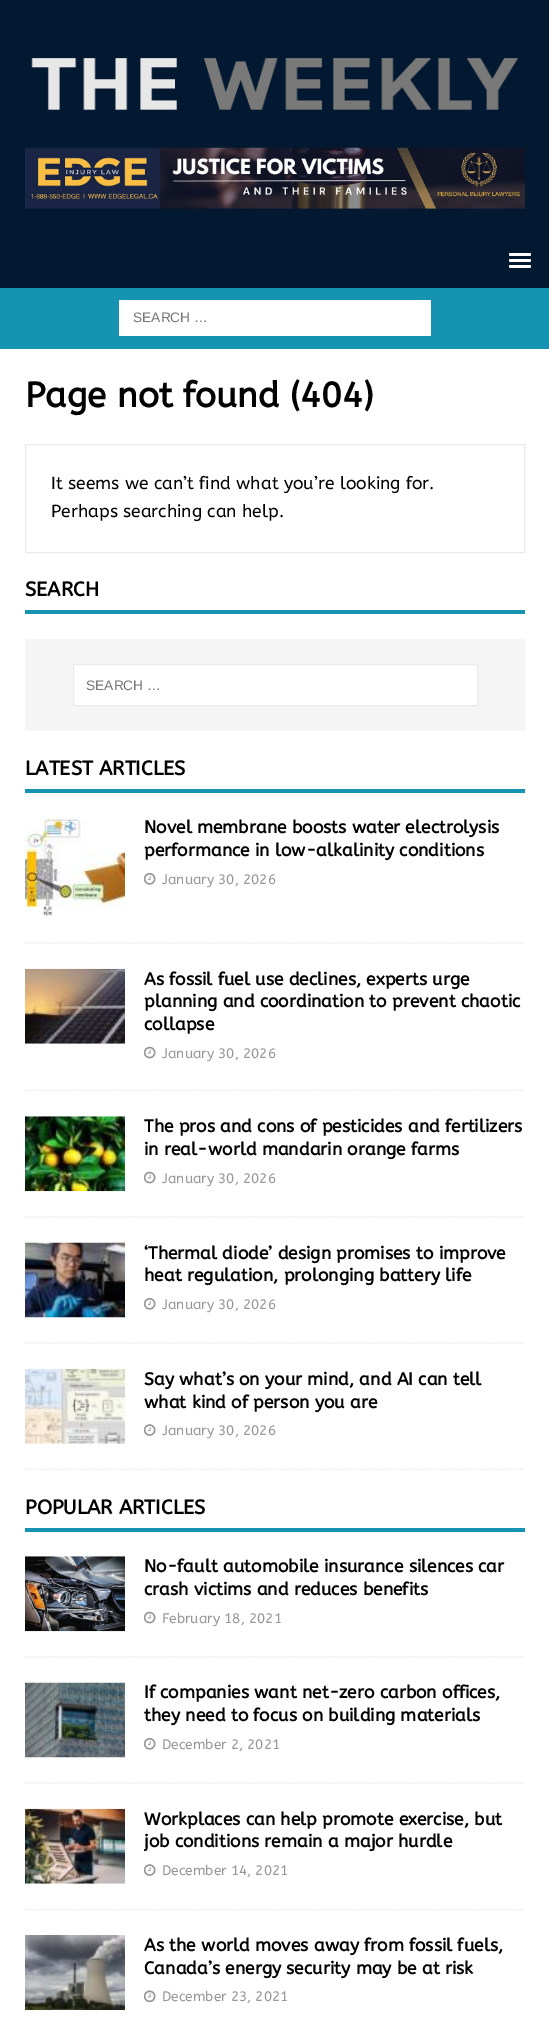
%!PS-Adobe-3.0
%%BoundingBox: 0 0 549 2027
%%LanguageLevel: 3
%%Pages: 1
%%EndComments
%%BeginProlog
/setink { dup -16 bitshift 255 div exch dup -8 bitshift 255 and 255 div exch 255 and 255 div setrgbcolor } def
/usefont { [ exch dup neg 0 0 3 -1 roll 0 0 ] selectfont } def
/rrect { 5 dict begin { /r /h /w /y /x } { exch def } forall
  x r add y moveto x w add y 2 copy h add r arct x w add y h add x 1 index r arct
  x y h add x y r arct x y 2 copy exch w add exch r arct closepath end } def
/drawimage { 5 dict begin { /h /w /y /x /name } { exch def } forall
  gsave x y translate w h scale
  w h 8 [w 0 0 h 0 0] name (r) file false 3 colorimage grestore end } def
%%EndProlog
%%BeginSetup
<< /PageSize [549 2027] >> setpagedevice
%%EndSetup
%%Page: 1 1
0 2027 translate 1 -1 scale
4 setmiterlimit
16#031931 setink
0 0 549 2027 rectfill
(img1.raw) 31 58 487 52 drawimage
(img2.raw) 25 147 500 62 drawimage
16#FFFFFF setink
509 253 22 3 1.5 rrect fill
509 259 22 3 1.5 rrect fill
509 265 22 3 1.5 rrect fill
16#1793B2 setink
0 288 549 61 rectfill
16#FFFFFF setink
119 300 312 36 rectfill
/LiberationSans-Regular 13.75 usefont
16#757575 setink
133 322 moveto (SEARCH …) show
16#FFFFFF setink
0 349 549 1678 rectfill
/ABeeZee-Bold 35 usefont
16#000000 setink
25 407 moveto (Page not found \(404\)) show
16#EBEBEB setink
25.5 444.5 499 108 rectstroke
/ABeeZee-Regular 17.5 usefont
16#000000 setink
51 489 moveto (It seems we can’t find what you’re looking for.) show
51 517 moveto (Perhaps searching can help.) show
16#1793B2 setink
25 610 500 4 rectfill
/ABeeZee-Bold 20 usefont
16#000000 setink
25 596 moveto (SEARCH) show
16#F5F5F5 setink
25 639 500 92 rectfill
16#FFFFFF setink
73.5 664.5 moveto 477.5 664.5 lineto 477.5 705.5 lineto 73.5 705.5 lineto closepath gsave fill grestore
16#EBEBEB setink
stroke
/LiberationSans-Regular 13.75 usefont
16#757575 setink
86 690 moveto (SEARCH …) show
16#1793B2 setink
25 789 500 4 rectfill
/ABeeZee-Bold 20 usefont
16#000000 setink
25 775 moveto (LATEST ARTICLES) show
16#EBEBEB setink
1.2 setlinewidth
[1.25 1.25] 0 setdash
25 943 moveto 525 943 lineto stroke
(img3.raw) 25 817 100 99 drawimage
/ABeeZee-Bold 17.5 usefont
16#000000 setink
144 833 moveto (Novel membrane boosts water electrolysis) show
144 856 moveto (performance in low-alkalinity conditions) show
(img4.raw) 144 873 12 12 drawimage
/ABeeZee-Regular 13.75 usefont
16#979797 setink
162 884 moveto (January 30, 2026) show
16#EBEBEB setink
25 1090.5 moveto 525 1090.5 lineto stroke
(img5.raw) 25 968 100 76 drawimage
/ABeeZee-Bold 17.5 usefont
16#000000 setink
[
    [(As fossil fuel use declines, experts urge) 144 985]
    [(planning and coordination to prevent chaotic) 144 1007]
    [(collapse) 144 1030]
] { aload pop moveto show } forall
(img6.raw) 144 1046 12 13 drawimage
/ABeeZee-Regular 13.75 usefont
16#979797 setink
162 1058 moveto (January 30, 2026) show
16#EBEBEB setink
25 1217 moveto 525 1217 lineto stroke
(img7.raw) 25 1116 100 76 drawimage
/ABeeZee-Bold 17.5 usefont
16#000000 setink
144 1132 moveto (The pros and cons of pesticides and fertilizers) show
144 1155 moveto (in real-world mandarin orange farms) show
(img6.raw) 144 1171 12 13 drawimage
/ABeeZee-Regular 13.75 usefont
16#979797 setink
162 1183 moveto (January 30, 2026) show
16#EBEBEB setink
25 1343 moveto 525 1343 lineto stroke
(img8.raw) 25 1242 100 76 drawimage
/ABeeZee-Bold 17.5 usefont
16#000000 setink
144 1259 moveto (‘Thermal diode’ design promises to improve) show
144 1281 moveto (heat regulation, prolonging battery life) show
(img4.raw) 144 1298 12 12 drawimage
/ABeeZee-Regular 13.75 usefont
16#979797 setink
162 1309 moveto (January 30, 2026) show
gsave
25 756 500 714 rectclip
16#EBEBEB setink
25 1469.5 moveto 525 1469.5 lineto stroke
grestore
(img9.raw) 25 1368 100 76 drawimage
/ABeeZee-Bold 17.5 usefont
16#000000 setink
144 1385 moveto (Say what’s on your mind, and AI can tell) show
144 1408 moveto (what kind of person you are) show
(img10.raw) 144 1424 12 12 drawimage
/ABeeZee-Regular 13.75 usefont
16#979797 setink
162 1435 moveto (January 30, 2026) show
16#1793B2 setink
25 1528 500 4 rectfill
/ABeeZee-Bold 20 usefont
16#000000 setink
25 1514 moveto (POPULAR ARTICLES) show
16#EBEBEB setink
25 1657 moveto 525 1657 lineto stroke
(img11.raw) 25 1556 100 76 drawimage
/ABeeZee-Bold 17.5 usefont
16#000000 setink
144 1572 moveto (No-fault automobile insurance silences car) show
144 1595 moveto (crash victims and reduces benefits) show
(img6.raw) 144 1611 12 13 drawimage
/ABeeZee-Regular 13.75 usefont
16#979797 setink
162 1623 moveto (February 18, 2021) show
16#EBEBEB setink
25 1783 moveto 525 1783 lineto stroke
(img12.raw) 25 1682 100 76 drawimage
/ABeeZee-Bold 17.5 usefont
16#000000 setink
144 1698 moveto (If companies want net-zero carbon offices,) show
144 1721 moveto (they need to focus on building materials) show
(img4.raw) 144 1738 12 12 drawimage
/ABeeZee-Regular 13.75 usefont
16#979797 setink
162 1749 moveto (December 2, 2021) show
16#EBEBEB setink
25 1909.5 moveto 525 1909.5 lineto stroke
(img13.raw) 25 1808 100 76 drawimage
/ABeeZee-Bold 17.5 usefont
16#000000 setink
144 1825 moveto (Workplaces can help promote exercise, but) show
gsave
144 1809 381 74 rectclip
144 1847 moveto (job conditions remain a major hurdle) show
grestore
(img10.raw) 144 1864 12 12 drawimage
/ABeeZee-Regular 13.75 usefont
16#979797 setink
162 1875 moveto (December 14, 2021) show
(img14.raw) 25 1935 100 75 drawimage
/ABeeZee-Bold 17.5 usefont
16#000000 setink
144 1951 moveto (As the world moves away from fossil fuels,) show
144 1974 moveto (Canada’s energy security may be at risk) show
(img15.raw) 144 1990 12 13 drawimage
/ABeeZee-Regular 13.75 usefont
16#979797 setink
162 2001 moveto (December 23, 2021) show
showpage
%%EOF
